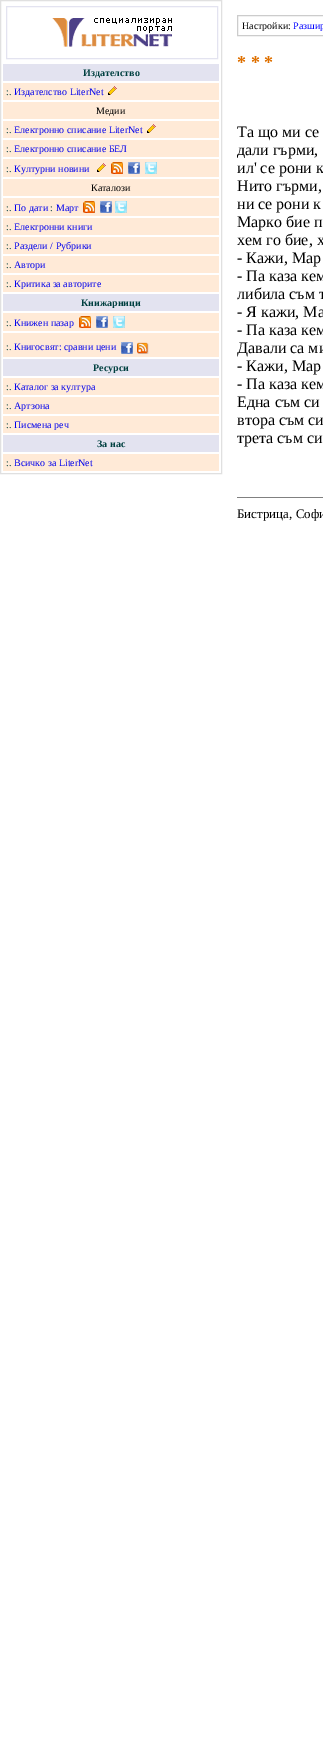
%!PS-Adobe-3.0
%%BoundingBox: 0 0 323 1747
%%LanguageLevel: 3
%%Pages: 1
%%EndComments
%%BeginProlog
/setink { dup -16 bitshift 255 div exch dup -8 bitshift 255 and 255 div exch 255 and 255 div setrgbcolor } def
/usefont { [ exch dup neg 0 0 3 -1 roll 0 0 ] selectfont } def
/drawimage { 5 dict begin { /h /w /y /x /name } { exch def } forall
  gsave x y translate w h scale
  w h 8 [w 0 0 h 0 0] name (r) file false 3 colorimage grestore end } def
%%EndProlog
%%BeginSetup
<< /PageSize [323 1747] >> setpagedevice
%%EndSetup
%%Page: 1 1
0 1747 translate 1 -1 scale
4 setmiterlimit
16#FFFFFF setink
0 0 323 1747 rectfill
16#E0E0E0 setink
0.5 0.5 221 473 rectstroke
16#E3E3F0 setink
6.5 6.5 211 52 rectstroke
(img1.raw) 52 18 120 29 drawimage
3 64 216 17 rectfill
/LiberationSerif-Bold 10 usefont
16#004040 setink
83 76 moveto (Издателство) show
16#FFEAD7 setink
3 83 216 17 rectfill
/LiberationSerif-Regular 10 usefont
16#004040 setink
6 95 moveto (:.) show
16#0000EE setink
14 95 moveto (Издателство LiterNet) show
(img2.raw) 108 86 9 9 drawimage
16#FFEAD7 setink
3 102 216 17 rectfill
16#000000 setink
96 114 moveto (Медии) show
16#FFEAD7 setink
3 121 216 17 rectfill
16#004040 setink
6 133 moveto (:.) show
16#0000EE setink
14 133 moveto (Електронно списание LiterNet) show
(img2.raw) 147 124 9 9 drawimage
16#FFEAD7 setink
3 140 216 17 rectfill
16#004040 setink
6 152 moveto (:.) show
16#0000EE setink
14 152 moveto (Електронно списание БЕЛ) show
16#FFEAD7 setink
3 159 216 18 rectfill
16#004040 setink
6 172 moveto (:.) show
16#0000EE setink
14 172 moveto (Културни новини) show
(img2.raw) 97 163 9 9 drawimage
(img3.raw) 111 162 12 12 drawimage
(img4.raw) 128 162 12 12 drawimage
(img5.raw) 145 162 12 12 drawimage
16#FFEAD7 setink
3 179 216 17 rectfill
16#000000 setink
91 191 moveto (Каталози) show
16#FFEAD7 setink
3 198 216 18 rectfill
16#004040 setink
6 211 moveto (:.) show
16#0000EE setink
14 211 moveto (По дати) show
16#004040 setink
50 211 moveto (:) show
16#0000EE setink
56 211 moveto (Март) show
(img3.raw) 83 201 12 12 drawimage
(img4.raw) 100 201 12 12 drawimage
(img5.raw) 115 201 12 12 drawimage
16#FFEAD7 setink
3 218 216 17 rectfill
16#004040 setink
6 230 moveto (:.) show
16#0000EE setink
14 230 moveto (Електронни книги) show
16#FFEAD7 setink
3 237 216 17 rectfill
16#004040 setink
6 249 moveto (:.) show
16#0000EE setink
14 249 moveto (Раздели / Рубрики) show
16#FFEAD7 setink
3 256 216 17 rectfill
16#004040 setink
6 268 moveto (:.) show
16#0000EE setink
14 268 moveto (Автори) show
16#FFEAD7 setink
3 275 216 17 rectfill
16#004040 setink
6 287 moveto (:.) show
16#0000EE setink
14 287 moveto (Критика за авторите) show
16#E3E3F0 setink
3 294 216 17 rectfill
/LiberationSerif-Bold 10 usefont
16#004040 setink
81 306 moveto (Книжарници) show
16#FFEAD7 setink
3 313 216 18 rectfill
/LiberationSerif-Regular 10 usefont
16#004040 setink
6 326 moveto (:.) show
16#0000EE setink
14 326 moveto (Книжен пазар) show
(img3.raw) 79 316 12 12 drawimage
(img4.raw) 96 316 12 12 drawimage
(img6.raw) 113 316 12 12 drawimage
16#FFEAD7 setink
3 333 216 24 rectfill
16#004040 setink
6 350 moveto (:.) show
16#0000EE setink
14 350 moveto (Книгосвят: сравни цени) show
(img4.raw) 121 342 12 12 drawimage
(img7.raw) 137 342 12 12 drawimage
16#E3E3F0 setink
3 359 216 17 rectfill
/LiberationSerif-Bold 10 usefont
16#004040 setink
93 371 moveto (Ресурси) show
16#FFEAD7 setink
3 378 216 17 rectfill
/LiberationSerif-Regular 10 usefont
16#004040 setink
6 390 moveto (:.) show
16#0000EE setink
14 390 moveto (Каталог за култура) show
16#FFEAD7 setink
3 397 216 17 rectfill
16#004040 setink
6 409 moveto (:.) show
16#0000EE setink
14 409 moveto (Артзона) show
16#FFEAD7 setink
3 416 216 17 rectfill
16#004040 setink
6 428 moveto (:.) show
16#0000EE setink
14 428 moveto (Писмена реч) show
16#E3E3F0 setink
3 435 216 17 rectfill
/LiberationSerif-Bold 10 usefont
16#004040 setink
97 447 moveto (За нас) show
16#FFEAD7 setink
3 454 216 17 rectfill
/LiberationSerif-Regular 10 usefont
16#004040 setink
6 466 moveto (:.) show
16#0000EE setink
14 466 moveto (Всичко за LiterNet) show
16#CCCCCC setink
237.5 15.5 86 20 rectstroke
16#000000 setink
242 29 moveto (Настройки:) show
16#0000FF setink
293 29 moveto (Разшир) show
/LiberationSerif-Bold 18 usefont
16#DF7000 setink
237 68 moveto (* * *) show
/LiberationSerif-Regular 16 usefont
16#000000 setink
[
    [(Та що ми се) 237 137]
    [(дали гърми,) 237 155]
    [(ил' се рони к) 237 173]
    [(Нито гърми,) 237 191]
    [(ни се рони к) 237 209]
    [(Марко бие п) 237 227]
    [(хем го бие, х) 237 245]
    [(- Кажи, Мар) 237 263]
    [(- Па каза кем) 237 281]
    [(либила съм т) 237 299]
    [(- Я кажи, Ма) 237 317]
    [(- Па каза кем) 237 335]
    [(Давали са ми) 237 353]
    [(- Кажи, Мар) 237 371]
    [(- Па каза кем) 237 389]
    [(Една съм си) 237 407]
    [(втора съм си) 237 425]
    [(трета съм си) 237 443]
] { aload pop moveto show } forall
16#808080 setink
237 497 86 1 rectfill
/LiberationSerif-Regular 13 usefont
16#000000 setink
237 518 moveto (Бистрица, Софи) show
showpage
%%EOF
